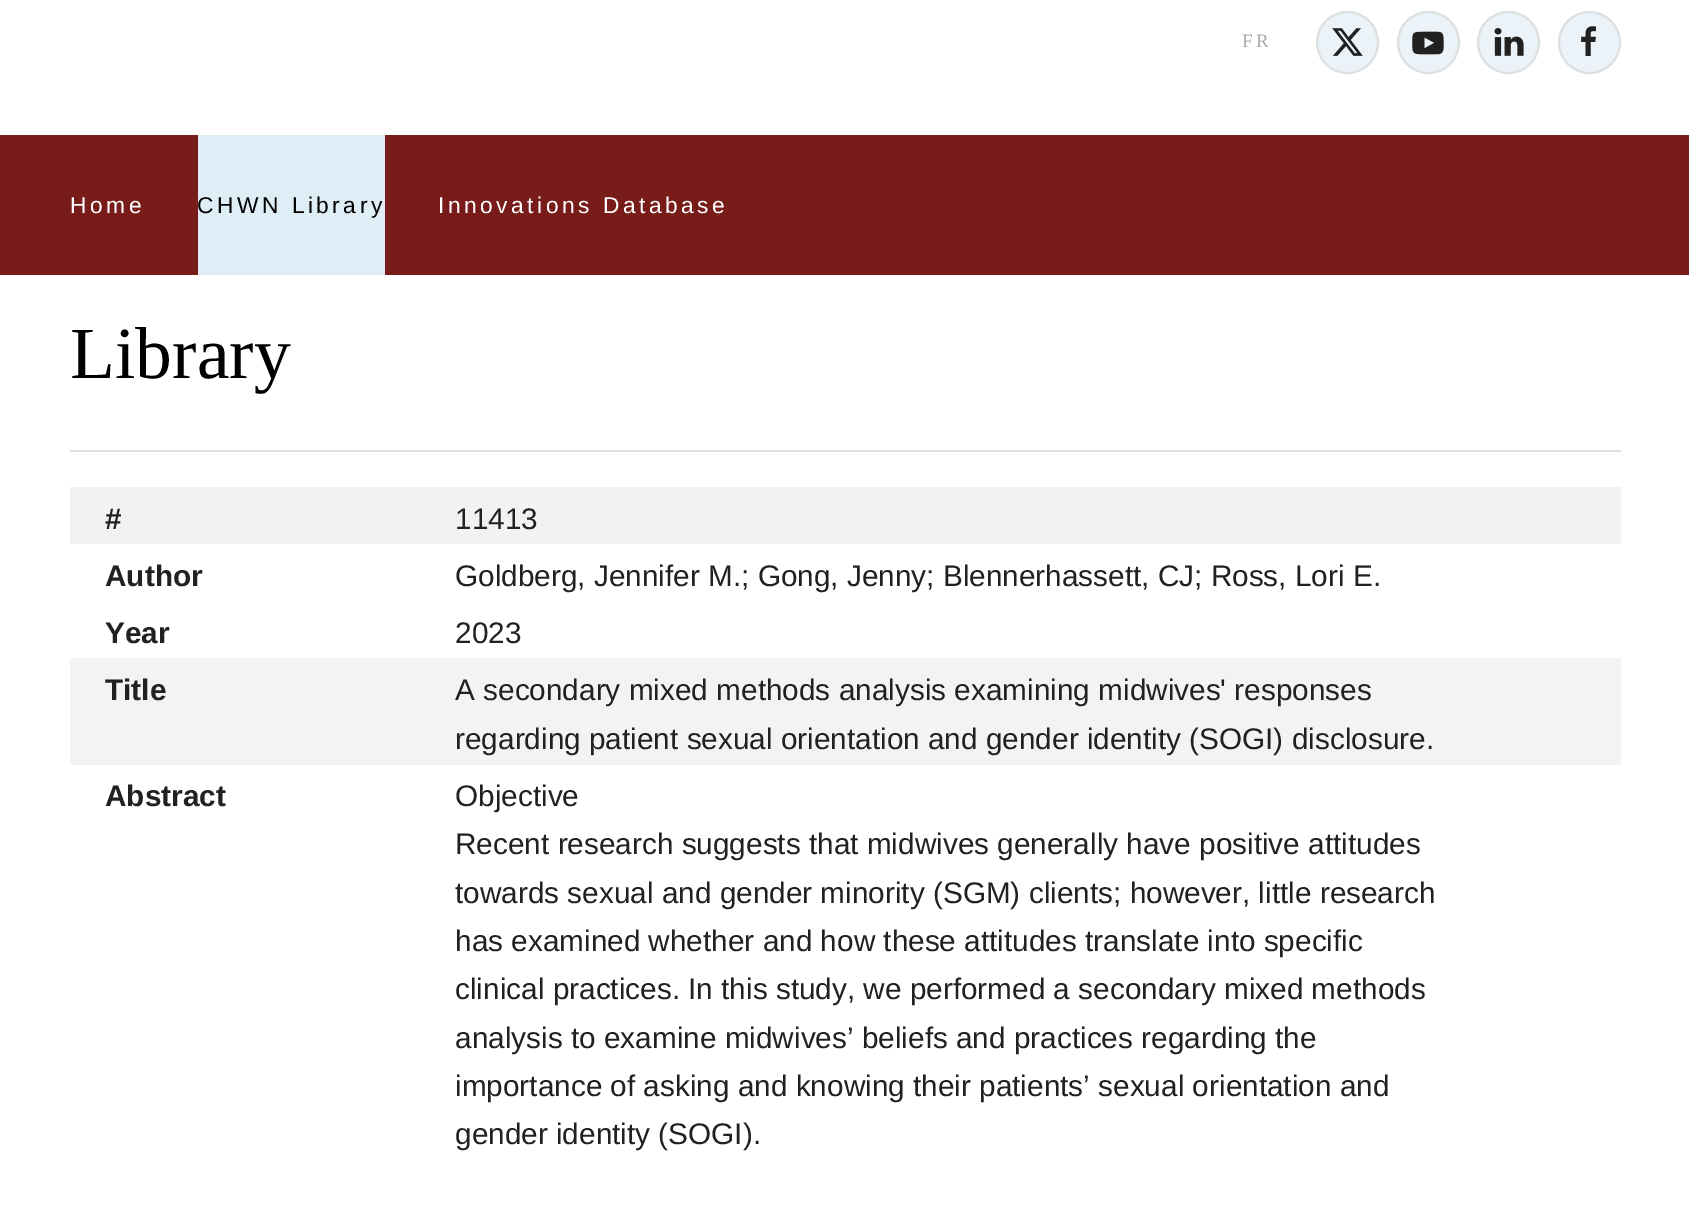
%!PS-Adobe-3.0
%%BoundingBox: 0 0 1689 1205
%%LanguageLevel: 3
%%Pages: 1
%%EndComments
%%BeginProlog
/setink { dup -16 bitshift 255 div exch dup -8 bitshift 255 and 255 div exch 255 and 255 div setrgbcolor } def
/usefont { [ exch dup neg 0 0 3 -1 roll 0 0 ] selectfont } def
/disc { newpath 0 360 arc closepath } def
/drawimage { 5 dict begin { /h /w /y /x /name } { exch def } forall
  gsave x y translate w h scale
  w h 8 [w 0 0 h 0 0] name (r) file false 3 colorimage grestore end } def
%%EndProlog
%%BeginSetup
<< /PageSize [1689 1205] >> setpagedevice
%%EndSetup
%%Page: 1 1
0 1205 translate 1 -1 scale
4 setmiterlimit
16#FFFFFF setink
0 0 1689 1205 rectfill
/LiberationSerif-Regular 19 usefont
16#AAAAAA setink
1242 47 moveto 3.5 0 (FR) ashow
16#EBF3F9 setink
1347.5 42.5 30.5 disc gsave fill grestore
16#DCE0E1 setink
2 setlinewidth
stroke
(img1.raw) 1332 28 31 28 drawimage
16#EBF3F9 setink
1428.5 42.5 30.5 disc gsave fill grestore
16#DCE0E1 setink
stroke
(img2.raw) 1412 31 32 24 drawimage
16#EBF3F9 setink
1508.5 42.5 30.5 disc gsave fill grestore
16#DCE0E1 setink
stroke
(img3.raw) 1494 28 30 28 drawimage
16#EBF3F9 setink
1589.5 42.5 30.5 disc gsave fill grestore
16#DCE0E1 setink
stroke
(img4.raw) 1581 26 15 30 drawimage
16#781C1A setink
0 135 1689 140 rectfill
/LiberationSans-Regular 22.75 usefont
16#FFFFFF setink
70 213 moveto 3.5 0 (Home) ashow
16#DFEDF7 setink
198 135 187 140 rectfill
16#000000 setink
197 213 moveto 3.5 0 (CHWN Library) ashow
16#FFFFFF setink
438 213 moveto 3.5 0 (Innovations Database) ashow
16#DCE0E1 setink
70 450 1551 2 rectfill
/LiberationSerif-Regular 73.5 usefont
16#000000 setink
70 378 moveto (Library) show
16#F2F2F2 setink
70 487 1551 57 rectfill
/LiberationSans-Bold 29.75 usefont
16#212121 setink
105 529 moveto (#) show
/LiberationSans-Regular 29.75 usefont
455 529 moveto (11413) show
/LiberationSans-Bold 29.75 usefont
105 586 moveto (Author) show
/LiberationSans-Regular 29.75 usefont
455 586 moveto (Goldberg, Jennifer M.; Gong, Jenny; Blennerhassett, CJ; Ross, Lori E.) show
/LiberationSans-Bold 29.75 usefont
105 643 moveto (Year) show
/LiberationSans-Regular 29.75 usefont
455 643 moveto (2023) show
16#F3F3F3 setink
70 658 1551 107 rectfill
/LiberationSans-Bold 29.75 usefont
16#212121 setink
105 700 moveto (Title) show
/LiberationSans-Regular 29.75 usefont
455 700 moveto (A secondary mixed methods analysis examining midwives' responses) show
455 749 moveto (regarding patient sexual orientation and gender identity \(SOGI\) disclosure.) show
/LiberationSans-Bold 29.75 usefont
105 806 moveto (Abstract) show
/LiberationSans-Regular 29.75 usefont
[
    [(Objective) 455 806]
    [(Recent research suggests that midwives generally have positive attitudes) 455 854]
    [(towards sexual and gender minority \(SGM\) clients; however, little research) 455 903]
    [(has examined whether and how these attitudes translate into specific) 455 951]
    [(clinical practices. In this study, we performed a secondary mixed methods) 455 999]
    [(analysis to examine midwives’ beliefs and practices regarding the) 455 1048]
    [(importance of asking and knowing their patients’ sexual orientation and) 455 1096]
    [(gender identity \(SOGI\).) 455 1144]
] { aload pop moveto show } forall
showpage
%%EOF
